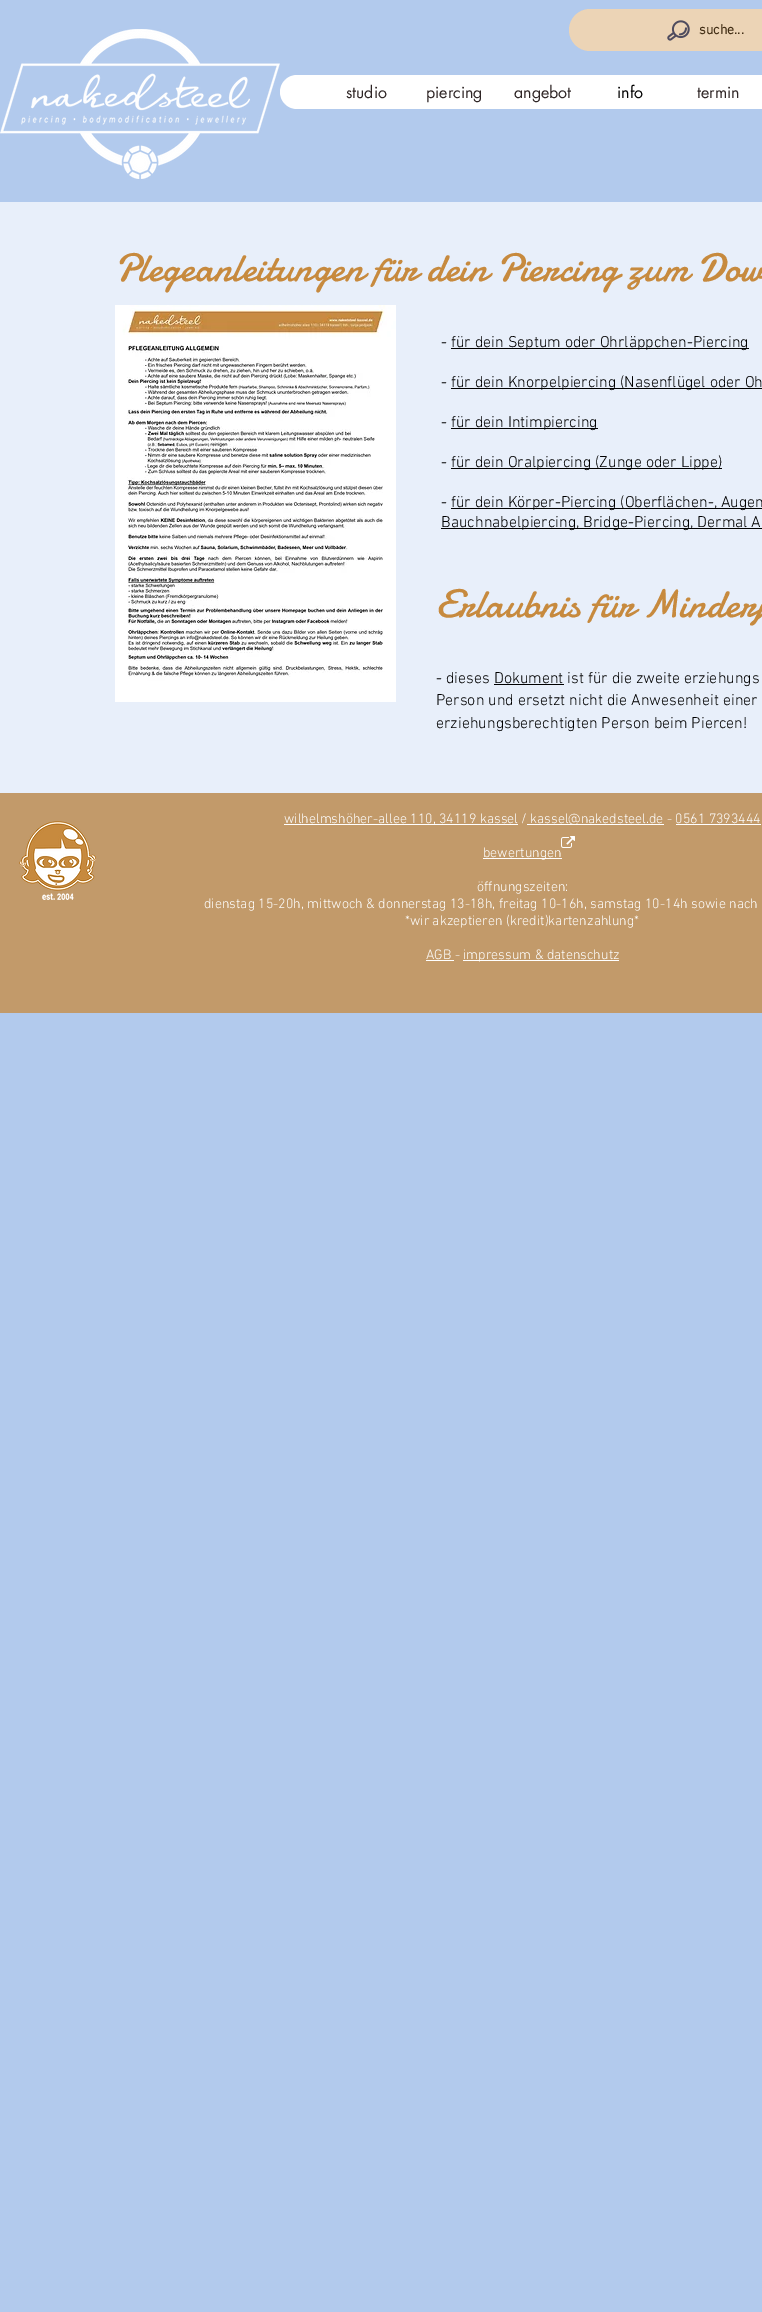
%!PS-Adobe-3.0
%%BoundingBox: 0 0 762 2312
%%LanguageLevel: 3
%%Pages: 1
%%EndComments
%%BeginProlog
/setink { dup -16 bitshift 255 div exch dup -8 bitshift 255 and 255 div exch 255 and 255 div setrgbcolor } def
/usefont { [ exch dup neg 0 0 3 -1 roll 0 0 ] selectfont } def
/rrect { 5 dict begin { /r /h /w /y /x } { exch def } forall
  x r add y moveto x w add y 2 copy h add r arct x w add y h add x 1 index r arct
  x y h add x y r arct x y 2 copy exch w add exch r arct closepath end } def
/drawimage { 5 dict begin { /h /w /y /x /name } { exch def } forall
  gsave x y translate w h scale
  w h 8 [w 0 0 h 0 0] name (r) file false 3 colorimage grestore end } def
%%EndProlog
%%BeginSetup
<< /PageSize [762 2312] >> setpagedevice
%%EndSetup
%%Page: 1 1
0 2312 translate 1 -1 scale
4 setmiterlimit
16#B2CAED setink
0 0 762 2312 rectfill
(img1.raw) 0 29 280 150 drawimage
16#ECD4B6 setink
569 9 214 42 21 rrect fill
(img2.raw) 667 20 23 21 drawimage
/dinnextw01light-Bold 14 usefont
16#422E15 setink
699 34 moveto (suche...) show
16#FFFFFF setink
280 75 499 34 17 rrect fill
/futura-Regular 16 usefont
16#2E2525 setink
[
    [(studio) 346 98]
    [(piercing) 426 98]
    [(angebot) 514 98]
] { aload pop moveto show } forall
16#000000 setink
617 98 moveto (info) show
16#2E2525 setink
697 98 moveto (termin) show
16#E8EFFA setink
0 202 762 591 rectfill
/Damion-Regular 40 usefont
16#C78A3E setink
115 281 moveto (Plegeanleitungen für dein Piercing zum Dow) show
(img3.raw) 115 305 281 397 drawimage
/dinnextw01light-Light 16 usefont
16#000000 setink
441 347 moveto (-) show
451 348 298 1 rectfill
451 347 moveto (für dein Septum oder Ohrläppchen-Piercing) show
441 387 moveto (-) show
451 388 311 1 rectfill
451 387 moveto (für dein Knorpelpiercing \(Nasenflügel oder Oh) show
441 427 moveto (-) show
451 428 147 1 rectfill
451 427 moveto (für dein Intimpiercing) show
441 467 moveto (-) show
451 468 271 1 rectfill
451 467 moveto (für dein Oralpiercing \(Zunge oder Lippe\)) show
441 507 moveto (-) show
451 508 311 1 rectfill
451 507 moveto (für dein Körper-Piercing \(Oberflächen-, Augen) show
441 528 321 1 rectfill
441 527 moveto (Bauchnabelpiercing, Bridge-Piercing, Dermal A) show
/Damion-Regular 40 usefont
16#C78A3E setink
436 617 moveto (Erlaubnis für Minderj) show
/dinnextw01light-Light 16 usefont
16#000000 setink
436 683 moveto (- dieses Dokument ist für die zweite erziehungs) show
494 684 70 1 rectfill
436 705 moveto (Person und ersetzt nicht die Anwesenheit einer) show
436 728 moveto (erziehungsberechtigten Person beim Piercen!) show
16#C29A6A setink
0 793 762 220 rectfill
(img4.raw) 19 821 77 79 drawimage
16#FFFFFF setink
284 824 234 1 rectfill
/dinnextw01light-Light 14 usefont
284 823 moveto (wilhelmshöher-allee 110, 34119 kassel /) show
527 824 137 1 rectfill
530 823 moveto (kassel@nakedsteel.de - 0561 7393444) show
676 824 85 1 rectfill
483 858 79 1 rectfill
[
    [(bewertungen) 483 857]
    [(öffnungszeiten:) 477 891]
    [(dienstag 15-20h, mittwoch & donnerstag 13-18h, freitag 10-16h, samstag 10-14h sowie nach) 204 908]
    [(*wir akzeptieren \(kredit\)kartenzahlung*) 405 925]
    [(AGB -) 426 959]
] { aload pop moveto show } forall
426 960 28 1 rectfill
463 960 156 1 rectfill
463 959 moveto (impressum & datenschutz) show
(img5.raw) 561 836 14 12 drawimage
showpage
%%EOF
